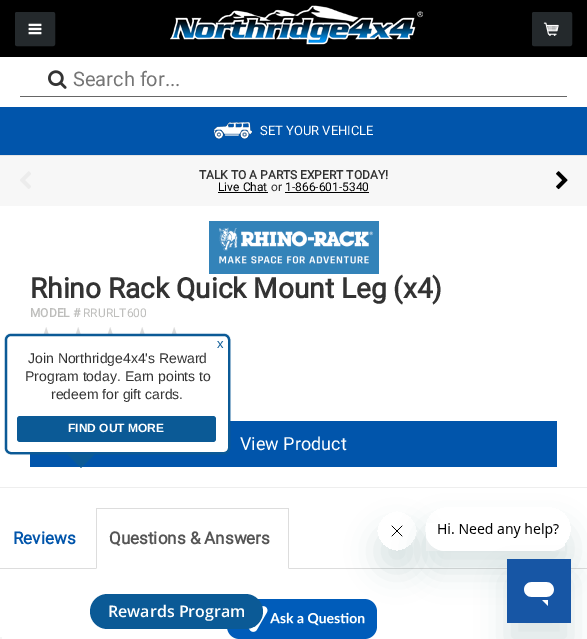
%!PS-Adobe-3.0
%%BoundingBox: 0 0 587 639
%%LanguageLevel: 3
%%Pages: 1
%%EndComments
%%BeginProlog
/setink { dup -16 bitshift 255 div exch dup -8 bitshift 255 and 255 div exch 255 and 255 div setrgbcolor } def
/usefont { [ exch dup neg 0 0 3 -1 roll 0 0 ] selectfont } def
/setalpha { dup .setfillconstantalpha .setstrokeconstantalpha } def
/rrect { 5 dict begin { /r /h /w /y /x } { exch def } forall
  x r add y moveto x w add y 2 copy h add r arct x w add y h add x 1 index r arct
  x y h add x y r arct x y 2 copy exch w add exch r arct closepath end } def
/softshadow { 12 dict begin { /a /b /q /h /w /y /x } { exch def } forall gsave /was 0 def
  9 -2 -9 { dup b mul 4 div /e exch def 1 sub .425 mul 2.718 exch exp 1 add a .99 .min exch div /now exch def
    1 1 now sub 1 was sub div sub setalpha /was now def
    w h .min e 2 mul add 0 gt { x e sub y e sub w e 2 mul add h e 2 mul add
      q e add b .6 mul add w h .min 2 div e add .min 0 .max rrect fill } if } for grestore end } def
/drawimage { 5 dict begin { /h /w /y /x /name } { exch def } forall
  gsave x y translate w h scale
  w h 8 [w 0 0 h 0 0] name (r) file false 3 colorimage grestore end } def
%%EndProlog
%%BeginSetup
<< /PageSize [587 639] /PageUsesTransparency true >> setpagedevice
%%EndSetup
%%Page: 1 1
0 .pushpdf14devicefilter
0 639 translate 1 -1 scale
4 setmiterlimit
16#000000 setink
0 0 587 639 rectfill
16#24292C setink
15.5 12.5 39 33 1.5 rrect gsave fill grestore
stroke
(img1.raw) 28 23 14 12 drawimage
(img2.raw) 170 5 253 40 drawimage
532.5 12.5 39 33 1.5 rrect gsave fill grestore
stroke
(img3.raw) 543 22 16 14 drawimage
16#FFFFFF setink
0 57 587 50 rectfill
16#666666 setink
20 96 547 1 rectfill
(img4.raw) 48 70 19 19 drawimage
/Roboto-Regular 20 usefont
16#757575 setink
73 86 moveto (Search for...) show
16#0155AB setink
0 107 587 48 rectfill
(img5.raw) 214 122 38 17 drawimage
/Roboto-Regular 13 usefont
16#FFFFFF setink
260 135 moveto (SET YOUR VEHICLE) show
16#F7F7F7 setink
0 156 587 50 rectfill
16#E5E5E5 setink
0 155 587 1 rectfill
(img6.raw) 20 171 11 18 drawimage
/Roboto-Bold 12 usefont
16#333333 setink
199 179 moveto (TALK TO A PARTS EXPERT TODAY!) show
/Roboto-Regular 12 usefont
16#000000 setink
218 191 moveto (Live Chat) show
218 192 50 1 rectfill
16#333333 setink
271 191 moveto (or) show
16#000000 setink
285 191 moveto (1-866-601-5340) show
285 192 84 1 rectfill
(img7.raw) 556 171 12 19 drawimage
16#FFFFFF setink
0 206 587 433 rectfill
(img8.raw) 209 221 170 53 drawimage
/Roboto-Bold 28 usefont
16#333333 setink
30 298 moveto (Rhino Rack Quick Mount Leg \(x4\)) show
/Roboto-Bold 12 usefont
16#BEBEBC setink
30 317 moveto (MODEL #) show
/Roboto-Regular 12 usefont
83 317 moveto (RRURLT600) show
(img9.raw) 43 327 6 7 drawimage
(img9.raw) 75 327 6 7 drawimage
(img9.raw) 107 327 6 7 drawimage
(img9.raw) 139 327 6 7 drawimage
(img9.raw) 171 327 6 7 drawimage
16#0155AB setink
30 421 527 46 rectfill
/Roboto-Regular 18 usefont
16#FFFFFF setink
240 450 moveto (View Product) show
16#EEEEEE setink
0 487 587 1 rectfill
16#DDDDDD setink
0 568 587 1 rectfill
/Roboto-Bold 17 usefont
16#0155AB setink
13 544 moveto (Reviews) show
16#FFFFFF setink
96 568 193 1 rectfill
16#DDDDDD setink
96 508 193 1 rectfill
289 508 moveto 289 569 lineto 288 568 lineto 288 509 lineto closepath fill
96 569 moveto 96 508 lineto 97 509 lineto 97 568 lineto closepath fill
16#555555 setink
109 544 moveto (Questions & Answers) show
(img10.raw) 227 599 150 40 drawimage
16#0B5A96 setink
5 334 225 120 6 0.5 1 softshadow
16#FFFFFF setink
6 335 223 118 5 rrect gsave fill grestore
16#0B5A96 setink
2 setlinewidth
stroke
/LiberationSans-Regular 13 usefont
217 348 moveto (x) show
/LiberationSans-Regular 14 usefont
16#333333 setink
[
    [(Join Northridge4x4's Reward) 28 363]
    [(Program today. Earn points to) 25 381]
    [(redeem for gift cards.) 51 399]
] { aload pop moveto show } forall
16#0B5A96 setink
17 416 199 26 3 rrect fill
/LiberationSans-Bold 12 usefont
16#FFFFFF setink
68 432 moveto (FIND OUT MORE) show
16#0B5A96 setink
67 454 moveto 95 454 lineto 81 468 lineto closepath fill
90 594 173 35 17.5 rrect fill
/OpenSans-SemiBold 16 usefont
16#FFFFFF setink
108 617 moveto (Rewards Program) show
gsave
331 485 moveto 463 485 lineto 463 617 lineto 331 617 lineto closepath 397 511 moveto 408 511 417 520 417 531 curveto 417 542 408 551 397 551 curveto 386 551 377 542 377 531 curveto 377 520 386 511 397 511 curveto closepath eoclip newpath
16#17494D setink
377 531 40 40 20 15 0.15 softshadow
grestore
(img12.raw) 391 525 12 12 drawimage
gsave
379 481 moveto 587 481 lineto 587 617 lineto 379 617 lineto closepath 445 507 moveto 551 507 lineto 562 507 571 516 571 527 curveto 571 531 lineto 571 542 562 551 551 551 curveto 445 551 lineto 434 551 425 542 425 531 curveto 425 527 lineto 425 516 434 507 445 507 curveto closepath eoclip newpath
16#17494D setink
425 527 146 44 20 15 0.15 softshadow
grestore
(img11.raw) 426 523 139 28 drawimage
16#17494D setink
507 579 64 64 0 15 0.15 softshadow
(img13.raw) 507 559 64 64 drawimage
16#F5F5F5 setink
0 637 2 2 rectfill
.poppdf14devicefilter showpage
%%EOF
